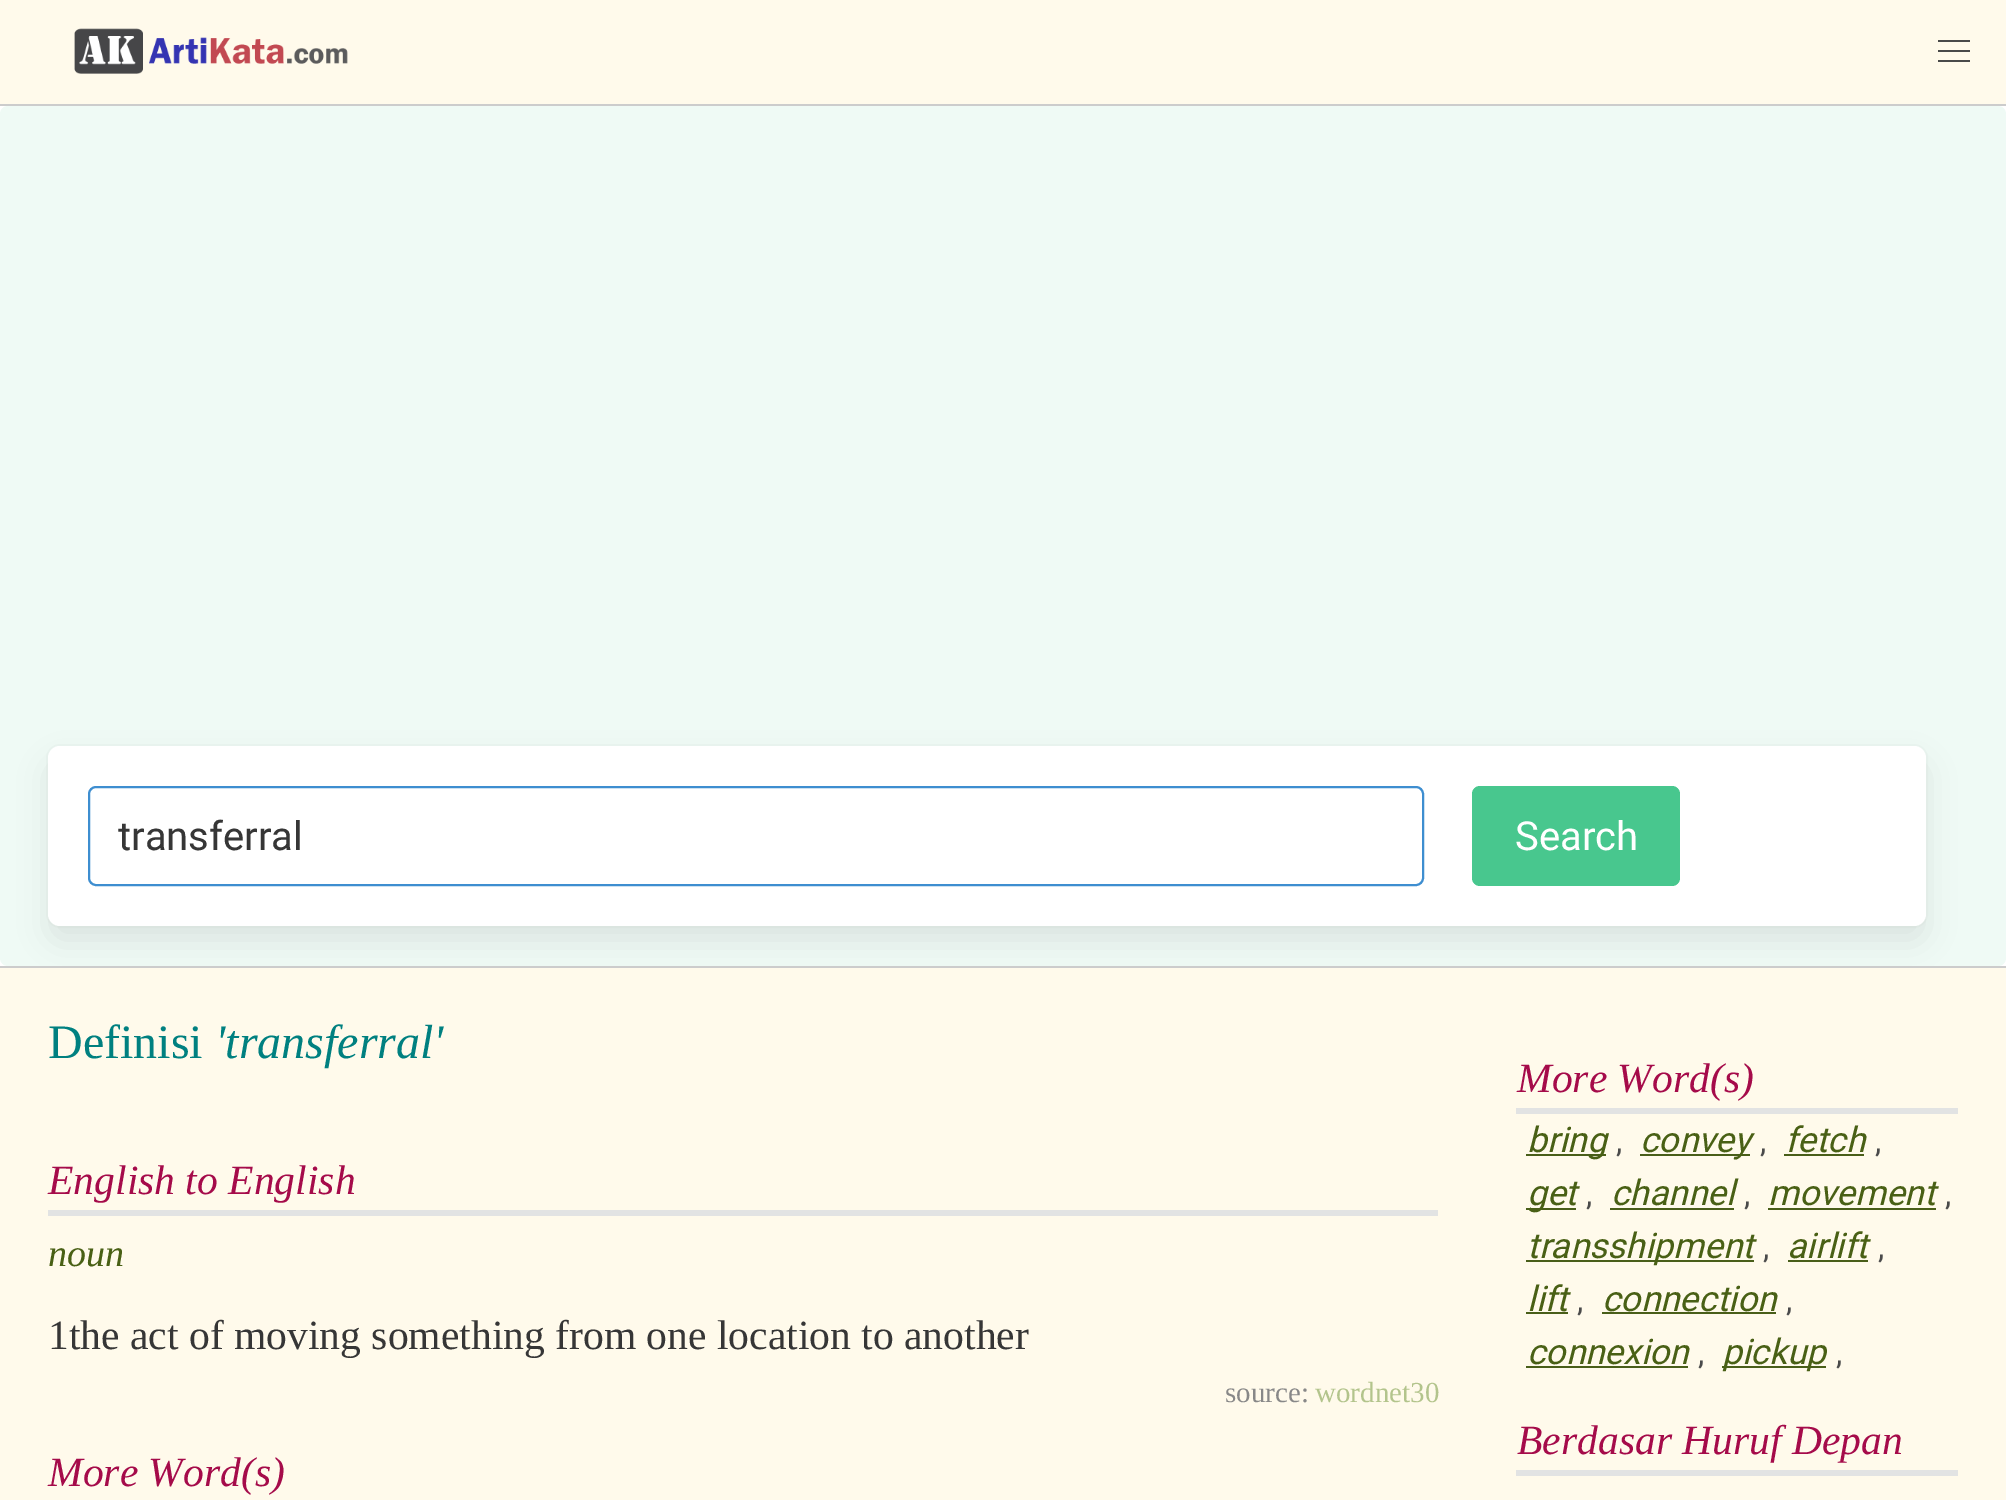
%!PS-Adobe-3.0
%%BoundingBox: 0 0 2006 1500
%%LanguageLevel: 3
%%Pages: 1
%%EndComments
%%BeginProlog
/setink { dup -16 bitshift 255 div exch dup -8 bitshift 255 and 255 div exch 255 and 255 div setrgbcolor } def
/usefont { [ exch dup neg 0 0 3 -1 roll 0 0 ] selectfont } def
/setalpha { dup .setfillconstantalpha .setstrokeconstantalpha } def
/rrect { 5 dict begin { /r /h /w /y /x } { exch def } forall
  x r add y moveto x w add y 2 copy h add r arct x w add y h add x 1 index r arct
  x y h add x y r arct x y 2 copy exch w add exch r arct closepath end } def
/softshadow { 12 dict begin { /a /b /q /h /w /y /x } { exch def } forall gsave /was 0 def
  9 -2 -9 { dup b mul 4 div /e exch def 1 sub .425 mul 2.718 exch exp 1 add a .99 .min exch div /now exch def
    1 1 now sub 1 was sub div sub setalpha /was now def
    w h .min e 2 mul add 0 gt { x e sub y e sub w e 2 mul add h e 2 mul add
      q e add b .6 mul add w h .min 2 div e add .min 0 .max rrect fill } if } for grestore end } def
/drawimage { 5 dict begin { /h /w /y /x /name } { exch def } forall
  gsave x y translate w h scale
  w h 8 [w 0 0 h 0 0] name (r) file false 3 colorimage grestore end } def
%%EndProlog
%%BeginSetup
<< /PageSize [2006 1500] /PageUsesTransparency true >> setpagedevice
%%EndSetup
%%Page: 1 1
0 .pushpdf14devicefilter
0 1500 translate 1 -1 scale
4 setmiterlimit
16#FFFFFF setink
0 0 2006 1500 rectfill
16#FFFAEB setink
0 0 2006 104 rectfill
16#CCCCCC setink
0 104 2006 2 rectfill
(img1.raw) 74 28 274 46 drawimage
[
    [1938 40 32 2 16#4A4A4A]
    [1938 50 32 2 16#4A4A4A]
    [1938 60 32 2 16#4A4A4A]
] { aload pop setink rectfill } forall
16#EFFAF5 setink
0 106 2006 860 8 rrect fill
16#EAF5F0 setink
2 setlinewidth
47 745 1880 182 13 rrect stroke
16#0A0A0A setink
52 766 1870 172 8 16 0.1 softshadow
16#FFFFFF setink
48 746 1878 180 12 rrect fill
16#3E8ED0 setink
89 787 1334 98 7 rrect stroke
/Roboto-Regular 40 usefont
16#363636 setink
118 850 moveto (transferral) show
16#48C78E setink
1472 786 208 100 8 rrect fill
16#FFFFFF setink
1515 850 moveto (Search) show
16#FFFAEB setink
0 968 2006 532 rectfill
16#CCCCCC setink
0 966 2006 2 rectfill
/LiberationSerif-Regular 48 usefont
16#008080 setink
48 1058 moveto (Definisi) show
/LiberationSerif-Italic 48 usefont
215 1058 moveto ('transferral') show
16#E2E3E3 setink
48 1210 1390 6 rectfill
/LiberationSerif-Italic 41.6 usefont
16#A50B4A setink
48 1194 moveto (English to English) show
/LiberationSerif-Italic 38 usefont
16#496015 setink
48 1266 moveto (noun) show
/LiberationSerif-Regular 41.6 usefont
16#363636 setink
48 1349 moveto (1the act of moving something from one location to another) show
/LiberationSerif-Regular 29 usefont
16#888888 setink
1225 1402 moveto (source:) show
16#B3C48C setink
1315 1402 moveto (wordnet30) show
/LiberationSerif-Italic 41.6 usefont
16#A50B4A setink
48 1486 moveto (More Word\(s\)) show
16#E2E3E3 setink
1516 1108 442 6 rectfill
16#A50B4A setink
1517 1092 moveto (More Word\(s\)) show
16#495E19 setink
1526 1154 80 2 rectfill
/Roboto-Italic 35.25 usefont
16#496015 setink
1527 1152 moveto (bring) show
/Roboto-Regular 32 usefont
16#4A4A4A setink
1616 1152 moveto (,) show
16#495E19 setink
1640 1154 110 2 rectfill
/Roboto-Italic 35.25 usefont
16#496015 setink
1640 1152 moveto (convey) show
/Roboto-Regular 32 usefont
16#4A4A4A setink
1760 1152 moveto (,) show
/Roboto-Italic 35.25 usefont
16#496015 setink
1785 1152 moveto (fetch) show
16#495E19 setink
1784 1154 80 2 rectfill
/Roboto-Regular 32 usefont
16#4A4A4A setink
1875 1152 moveto (,) show
16#495E19 setink
1526 1208 50 2 rectfill
/Roboto-Italic 35.25 usefont
16#496015 setink
1527 1205 moveto (get) show
/Roboto-Regular 32 usefont
16#4A4A4A setink
1586 1205 moveto (,) show
/Roboto-Italic 35.25 usefont
16#496015 setink
1611 1205 moveto (channel) show
16#495E19 setink
1610 1208 124 2 rectfill
/Roboto-Regular 32 usefont
16#4A4A4A setink
1744 1205 moveto (,) show
/Roboto-Italic 35.25 usefont
16#496015 setink
1768 1205 moveto (movement) show
16#495E19 setink
1768 1208 168 2 rectfill
/Roboto-Regular 32 usefont
16#4A4A4A setink
1945 1205 moveto (,) show
16#495E19 setink
1526 1260 228 2 rectfill
/Roboto-Italic 35.25 usefont
16#496015 setink
1527 1258 moveto (transshipment) show
/Roboto-Regular 32 usefont
16#4A4A4A setink
1763 1258 moveto (,) show
/Roboto-Italic 35.25 usefont
16#496015 setink
1787 1258 moveto (airlift) show
16#495E19 setink
1788 1260 80 2 rectfill
/Roboto-Regular 32 usefont
16#4A4A4A setink
1878 1258 moveto (,) show
/Roboto-Italic 35.25 usefont
16#496015 setink
1527 1311 moveto (lift) show
16#495E19 setink
1526 1312 42 2 rectfill
/Roboto-Regular 32 usefont
16#4A4A4A setink
1577 1311 moveto (,) show
/Roboto-Italic 35.25 usefont
16#496015 setink
1602 1311 moveto (connection) show
16#495E19 setink
1602 1312 174 2 rectfill
/Roboto-Regular 32 usefont
16#4A4A4A setink
1786 1311 moveto (,) show
/Roboto-Italic 35.25 usefont
16#496015 setink
1527 1364 moveto (connexion) show
16#495E19 setink
1526 1366 162 2 rectfill
/Roboto-Regular 32 usefont
16#4A4A4A setink
1698 1364 moveto (,) show
16#495E19 setink
1722 1366 104 2 rectfill
/Roboto-Italic 35.25 usefont
16#496015 setink
1722 1364 moveto (pickup) show
/Roboto-Regular 32 usefont
16#4A4A4A setink
1836 1364 moveto (,) show
16#E2E3E3 setink
1516 1470 442 6 rectfill
/LiberationSerif-Italic 41.6 usefont
16#A50B4A setink
1517 1454 moveto (Berdasar Huruf Depan) show
.poppdf14devicefilter showpage
%%EOF
